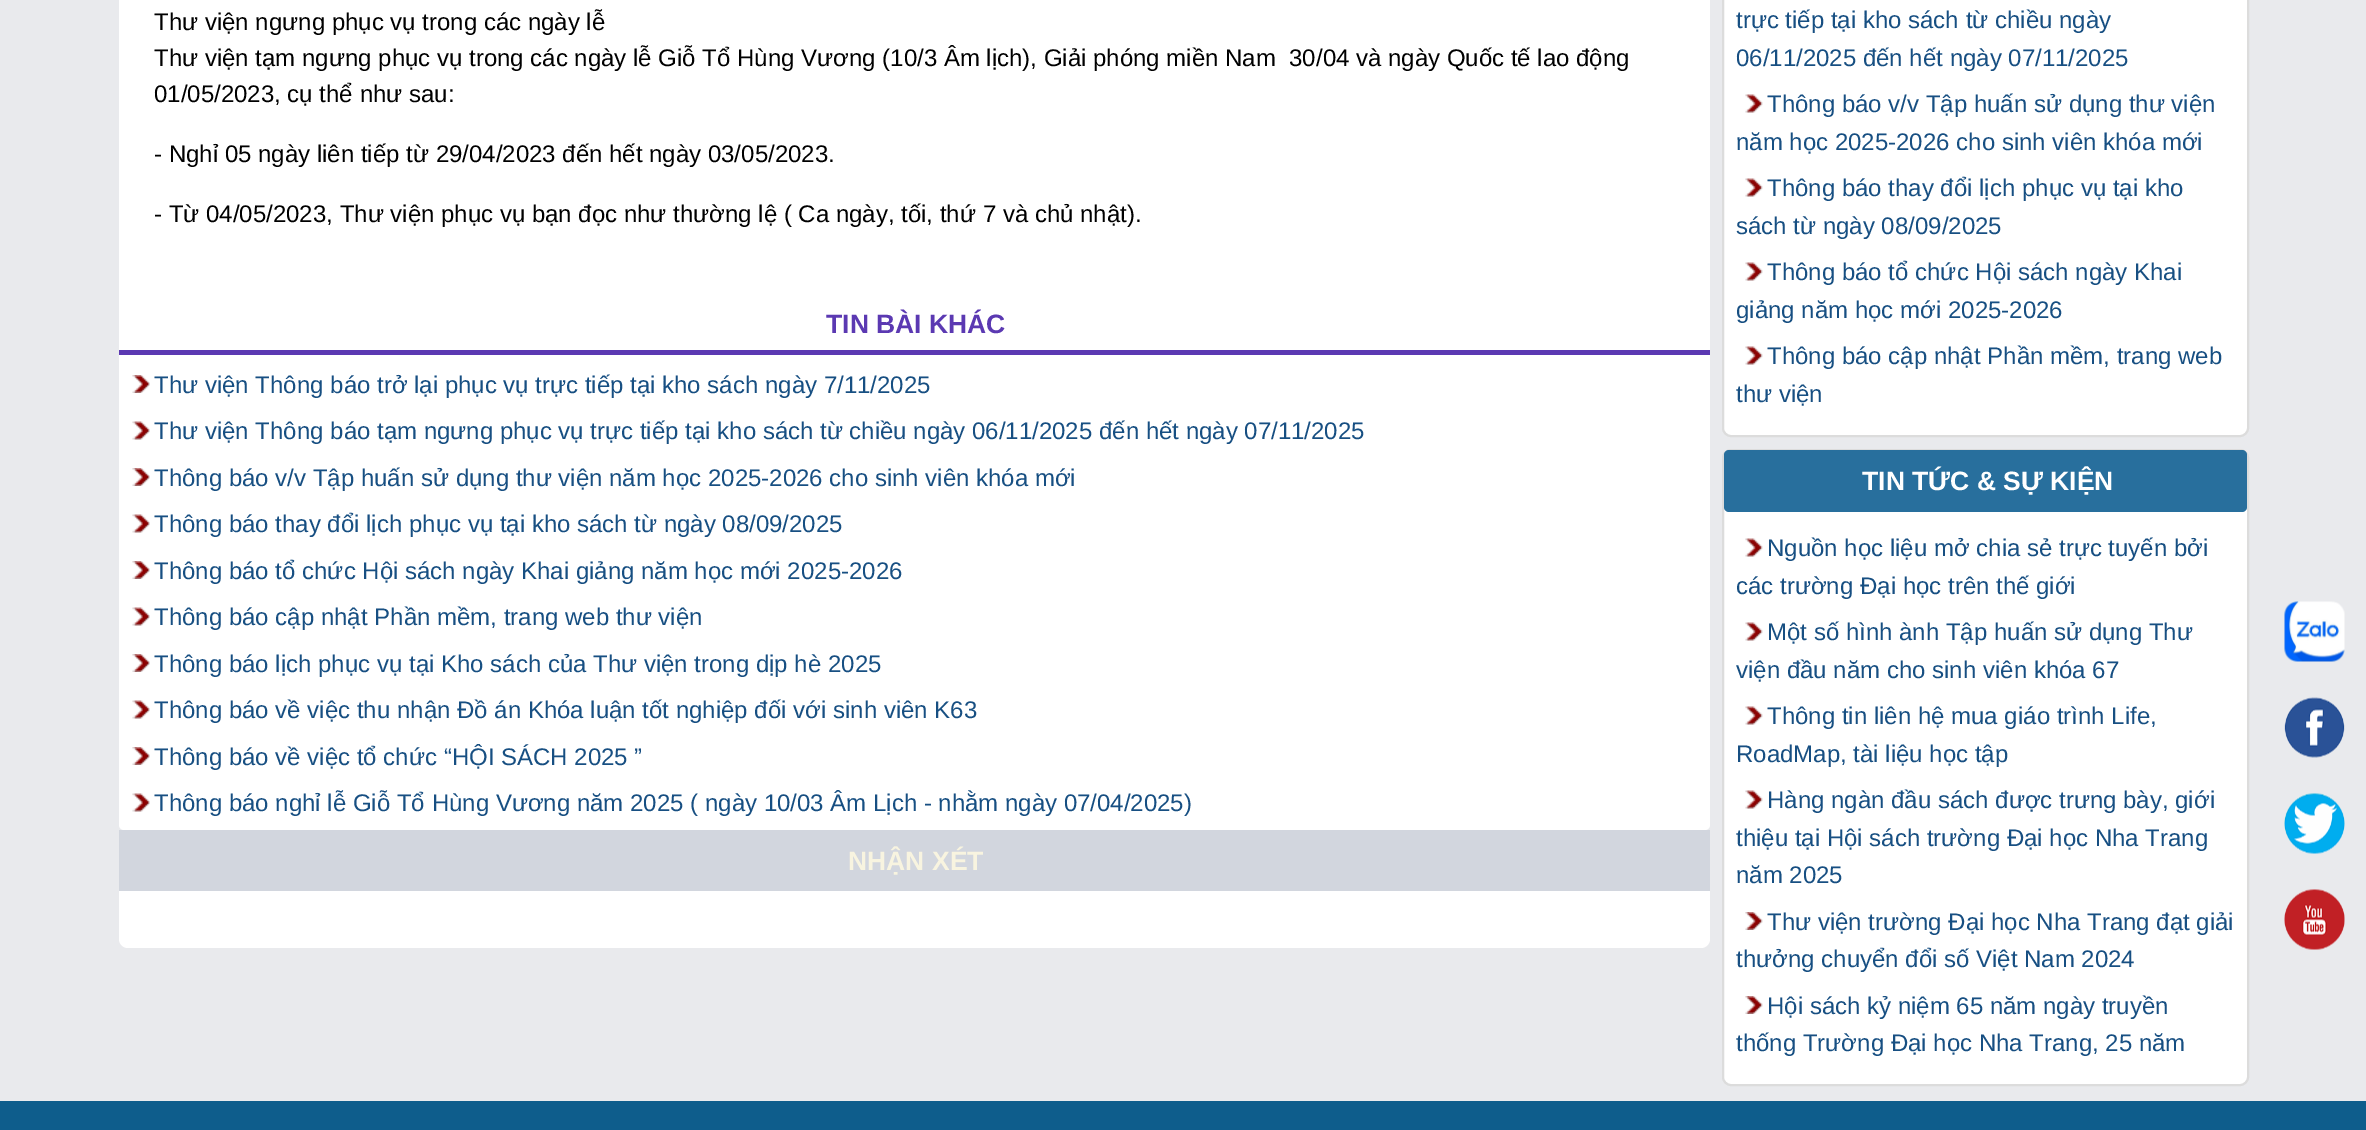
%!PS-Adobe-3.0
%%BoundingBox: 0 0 2366 1130
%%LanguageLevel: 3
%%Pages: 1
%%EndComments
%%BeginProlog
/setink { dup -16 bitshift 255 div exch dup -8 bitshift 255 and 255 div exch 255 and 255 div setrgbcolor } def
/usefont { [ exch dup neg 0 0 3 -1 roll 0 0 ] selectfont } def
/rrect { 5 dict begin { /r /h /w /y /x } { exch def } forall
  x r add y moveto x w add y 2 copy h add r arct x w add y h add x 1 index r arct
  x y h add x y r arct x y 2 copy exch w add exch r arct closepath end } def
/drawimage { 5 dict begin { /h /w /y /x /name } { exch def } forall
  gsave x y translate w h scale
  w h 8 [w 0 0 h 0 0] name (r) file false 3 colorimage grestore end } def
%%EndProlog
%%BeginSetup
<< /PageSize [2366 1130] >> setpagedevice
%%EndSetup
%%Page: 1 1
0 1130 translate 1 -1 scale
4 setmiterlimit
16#0E5D8C setink
0 0 2366 1130 rectfill
16#E9EAED setink
0 0 2366 1101 rectfill
16#FFFFFF setink
119 -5 1591 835 5 rrect fill
/LiberationSans-Regular 24 usefont
16#000000 setink
[
    [(Thư viện ngưng phục vụ trong các ngày lễ) 154 30]
    [(Thư viện tạm ngưng phục vụ trong các ngày lễ Giỗ Tổ Hùng Vương \(10/3 Âm lịch\), Giải phóng miền Nam  30/04 và ngày Quốc tế lao động) 154 66]
    [(01/05/2023, cụ thể như sau:) 154 102]
    [(- Nghỉ 05 ngày liên tiếp từ 29/04/2023 đến hết ngày 03/05/2023.) 154 162]
    [(- Từ 04/05/2023, Thư viện phục vụ bạn đọc như thường lệ \( Ca ngày, tối, thứ 7 và chủ nhật\).) 154 222]
] { aload pop moveto show } forall
16#5B39B2 setink
119 350 1591 5 rectfill
/LiberationSans-Bold 26.5 usefont
826 333 moveto (TIN BÀI KHÁC) show
(img1.raw) 132 375 18 18 drawimage
/LiberationSans-Regular 24 usefont
16#174F82 setink
154 393 moveto (Thư viện Thông báo trở lại phục vụ trực tiếp tại kho sách ngày 7/11/2025) show
(img2.raw) 132 421 18 19 drawimage
154 439 moveto (Thư viện Thông báo tạm ngưng phục vụ trực tiếp tại kho sách từ chiều ngày 06/11/2025 đến hết ngày 07/11/2025) show
(img1.raw) 132 468 18 18 drawimage
154 486 moveto (Thông báo v/v Tập huấn sử dụng thư viện năm học 2025-2026 cho sinh viên khóa mới) show
(img2.raw) 132 514 18 19 drawimage
154 532 moveto (Thông báo thay đổi lịch phục vụ tại kho sách từ ngày 08/09/2025) show
(img1.raw) 132 561 18 18 drawimage
154 579 moveto (Thông báo tổ chức Hội sách ngày Khai giảng năm học mới 2025-2026) show
(img2.raw) 132 607 18 19 drawimage
154 625 moveto (Thông báo cập nhật Phần mềm, trang web thư viện) show
(img1.raw) 132 654 18 18 drawimage
154 672 moveto (Thông báo lịch phục vụ tại Kho sách của Thư viện trong dịp hè 2025) show
(img2.raw) 132 700 18 19 drawimage
154 718 moveto (Thông báo về việc thu nhận Đồ án Khóa luận tốt nghiệp đối với sinh viên K63) show
(img1.raw) 132 747 18 18 drawimage
154 765 moveto (Thông báo về việc tổ chức “HỘI SÁCH 2025 ”) show
(img2.raw) 132 793 18 19 drawimage
154 811 moveto (Thông báo nghỉ lễ Giỗ Tổ Hùng Vương năm 2025 \( ngày 10/03 Âm Lịch - nhằm ngày 07/04/2025\)) show
16#FFFFFF setink
119 830 1591 118 9 rrect fill
16#D2D6DE setink
119 830 1591 61 rectfill
/LiberationSans-Bold 26.5 usefont
16#F8F4E0 setink
848 870 moveto (NHẬN XÉT) show
16#FFFFFF setink
1723 -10 525 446 8 rrect gsave fill grestore
16#DCDCDC setink
2 setlinewidth
stroke
/LiberationSans-Regular 24 usefont
16#174F82 setink
1736 28 moveto (trực tiếp tại kho sách từ chiều ngày) show
1736 66 moveto (06/11/2025 đến hết ngày 07/11/2025) show
(img3.raw) 1745 94 18 19 drawimage
1767 112 moveto (Thông báo v/v Tập huấn sử dụng thư viện) show
1736 150 moveto (năm học 2025-2026 cho sinh viên khóa mới) show
(img3.raw) 1745 178 18 19 drawimage
1767 196 moveto (Thông báo thay đổi lịch phục vụ tại kho) show
1736 234 moveto (sách từ ngày 08/09/2025) show
(img3.raw) 1745 262 18 19 drawimage
1767 280 moveto (Thông báo tổ chức Hội sách ngày Khai) show
1736 318 moveto (giảng năm học mới 2025-2026) show
(img3.raw) 1745 346 18 19 drawimage
1767 364 moveto (Thông báo cập nhật Phần mềm, trang web) show
1736 402 moveto (thư viện) show
16#FFFFFF setink
1723 450 525 635 8 rrect gsave fill grestore
16#DCDCDC setink
stroke
16#286F9D setink
1724 450 523 62 5 rrect fill
/LiberationSans-Bold 26.5 usefont
16#FFFFFF setink
1862 490 moveto (TIN TỨC & SỰ KIỆN) show
(img3.raw) 1745 538 18 19 drawimage
/LiberationSans-Regular 24 usefont
16#174F82 setink
1767 556 moveto (Nguồn học liệu mở chia sẻ trực tuyến bởi) show
1736 594 moveto (các trường Đại học trên thế giới) show
(img3.raw) 1745 622 18 19 drawimage
1767 640 moveto (Một số hình ành Tập huấn sử dụng Thư) show
1736 678 moveto (viện đầu năm cho sinh viên khóa 67) show
(img3.raw) 1745 706 18 19 drawimage
1767 724 moveto (Thông tin liên hệ mua giáo trình Life,) show
1736 762 moveto (RoadMap, tài liệu học tập) show
(img3.raw) 1745 790 18 19 drawimage
[
    [(Hàng ngàn đầu sách được trưng bày, giới) 1767 808]
    [(thiệu tại Hội sách trường Đại học Nha Trang) 1736 846]
    [(năm 2025) 1736 883]
] { aload pop moveto show } forall
(img4.raw) 1745 912 18 18 drawimage
1767 930 moveto (Thư viện trường Đại học Nha Trang đạt giải) show
1736 967 moveto (thưởng chuyển đổi số Việt Nam 2024) show
(img4.raw) 1745 996 18 18 drawimage
1767 1014 moveto (Hội sách kỷ niệm 65 năm ngày truyền) show
1736 1051 moveto (thống Trường Đại học Nha Trang, 25 năm) show
(img5.raw) 2284 601 61 61 drawimage
(img6.raw) 2284 697 61 61 drawimage
(img7.raw) 2284 793 61 61 drawimage
(img8.raw) 2284 889 61 61 drawimage
showpage
%%EOF
